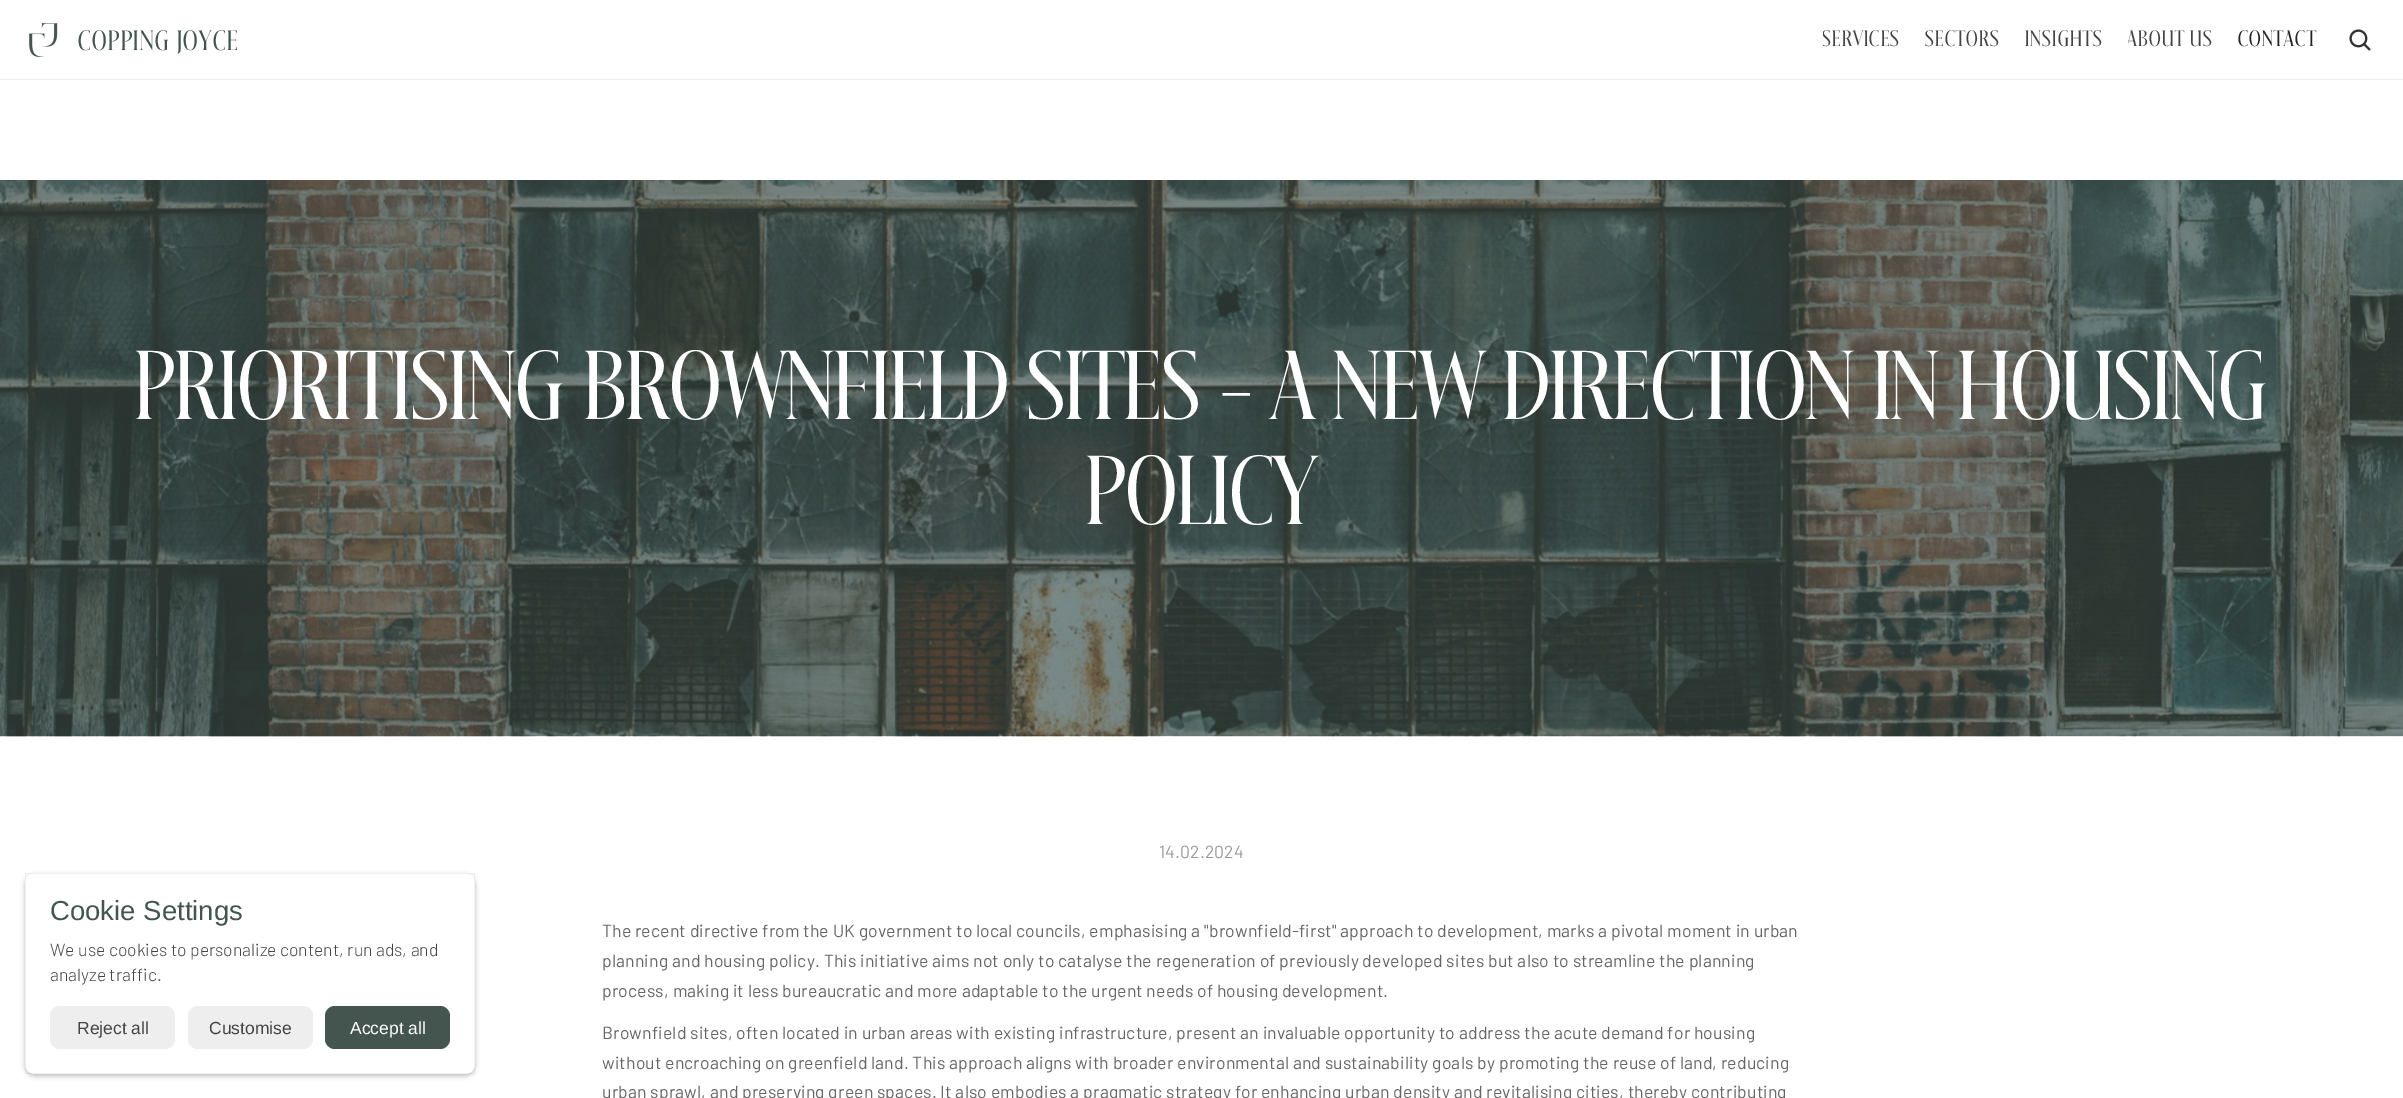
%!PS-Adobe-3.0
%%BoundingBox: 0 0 2403 1098
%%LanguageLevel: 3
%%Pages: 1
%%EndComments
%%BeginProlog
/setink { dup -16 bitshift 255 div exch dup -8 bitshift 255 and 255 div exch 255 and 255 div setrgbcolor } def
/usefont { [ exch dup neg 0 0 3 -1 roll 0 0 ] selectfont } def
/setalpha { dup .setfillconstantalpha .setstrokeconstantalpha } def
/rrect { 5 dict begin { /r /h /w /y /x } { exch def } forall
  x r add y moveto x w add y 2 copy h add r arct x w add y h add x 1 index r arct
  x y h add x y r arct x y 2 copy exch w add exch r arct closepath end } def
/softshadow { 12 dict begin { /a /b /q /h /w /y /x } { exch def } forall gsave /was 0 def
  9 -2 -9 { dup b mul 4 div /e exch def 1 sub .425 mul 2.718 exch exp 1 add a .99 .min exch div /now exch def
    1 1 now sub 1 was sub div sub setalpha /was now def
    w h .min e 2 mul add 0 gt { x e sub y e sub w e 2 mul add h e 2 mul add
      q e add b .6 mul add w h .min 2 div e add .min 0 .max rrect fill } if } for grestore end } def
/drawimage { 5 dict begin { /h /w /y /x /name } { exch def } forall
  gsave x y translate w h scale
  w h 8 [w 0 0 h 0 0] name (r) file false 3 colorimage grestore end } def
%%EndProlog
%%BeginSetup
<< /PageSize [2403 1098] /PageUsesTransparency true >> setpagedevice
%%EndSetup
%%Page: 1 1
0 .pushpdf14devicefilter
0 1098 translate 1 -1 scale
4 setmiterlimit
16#FFFFFF setink
0 0 2403 1098 rectfill
(img1.raw) 28 23 30 34 drawimage
/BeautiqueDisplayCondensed-Regular 25 usefont
16#445550 setink
78 50 moveto 1.5 0 (COPPING JOYCE) ashow
gsave
1823 20 77 40 rectclip
/BeautiqueDisplayCondensed-Regular 20 usefont
16#444444 setink
1822 46 moveto 1.25 0 (SERVICES) ashow
grestore
/BeautiqueDisplayCondensed-Regular 20 usefont
16#444444 setink
1925 46 moveto 1.25 0 (SECTORS) ashow
2025 46 moveto 1.25 0 (INSIGHTS) ashow
gsave
2128 20 85 40 rectclip
2127 46 moveto 1.25 0 (ABOUT US) ashow
grestore
16#222222 setink
2238 46 moveto 1.25 0 (CONTACT) ashow
(img2.raw) 2349 29 22 22 drawimage
16#EDEDED setink
0 79 2403 1 rectfill
(img3.raw) 0 180 2403 557 drawimage
/BeautiqueDisplayCondensed-Regular 87.5 usefont
16#FFFFFF setink
135 419 moveto 0.75 0 (PRIORITISING BROWNFIELD SITES - A NEW DIRECTION IN HOUSING) ashow
1086 524 moveto 0.75 0 (POLICY) ashow
/Barlow-Regular 17.5 usefont
16#999999 setink
1159 858 moveto 0.18 0 (14.02.2024) ashow
16#666666 setink
602 937 moveto 0.18 0 (The recent directive from the UK government to local councils, emphasising a "brownfield-first" approach to development, marks a pivotal moment in urban) ashow
602 967 moveto 0.18 0 (planning and housing policy. This initiative aims not only to catalyse the regeneration of previously developed sites but also to streamline the planning) ashow
602 997 moveto 0.18 0 (process, making it less bureaucratic and more adaptable to the urgent needs of housing development.) ashow
602 1039 moveto 0.18 0 (Brownfield sites, often located in urban areas with existing infrastructure, present an invaluable opportunity to address the acute demand for housing) ashow
602 1069 moveto 0.18 0 (without encroaching on greenfield land. This approach aligns with broader environmental and sustainability goals by promoting the reuse of land, reducing) ashow
602 1098 moveto 0.18 0 (urban sprawl, and preserving green spaces. It also embodies a pragmatic strategy for enhancing urban density and revitalising cities, thereby contributing) ashow
16#000000 setink
25 875 450 201 10 2.5 0.25 softshadow
16#FFFFFF setink
25 873 450 201 10 rrect fill
0.05 setalpha
16#000000 setink
25.5 873.5 449 200 rectstroke
/LiberationSans-Regular 27.5 usefont
1 setalpha
16#445550 setink
50 920 moveto (Cookie Settings) show
/Barlow-Light 17.5 usefont
16#444444 setink
50 956 moveto (We use cookies to personalize content, run ads, and) show
50 981 moveto (analyze traffic.) show
16#EEEEEE setink
50 1006 125 43 10 rrect fill
/LiberationSans-Regular 17.5 usefont
16#444444 setink
77 1034 moveto (Reject all) show
16#EEEEEE setink
188 1006 125 43 10 rrect fill
16#444444 setink
209 1034 moveto (Customise) show
16#445550 setink
325 1006 125 43 10 rrect fill
16#FFFFFF setink
350 1034 moveto (Accept all) show
.poppdf14devicefilter showpage
%%EOF
